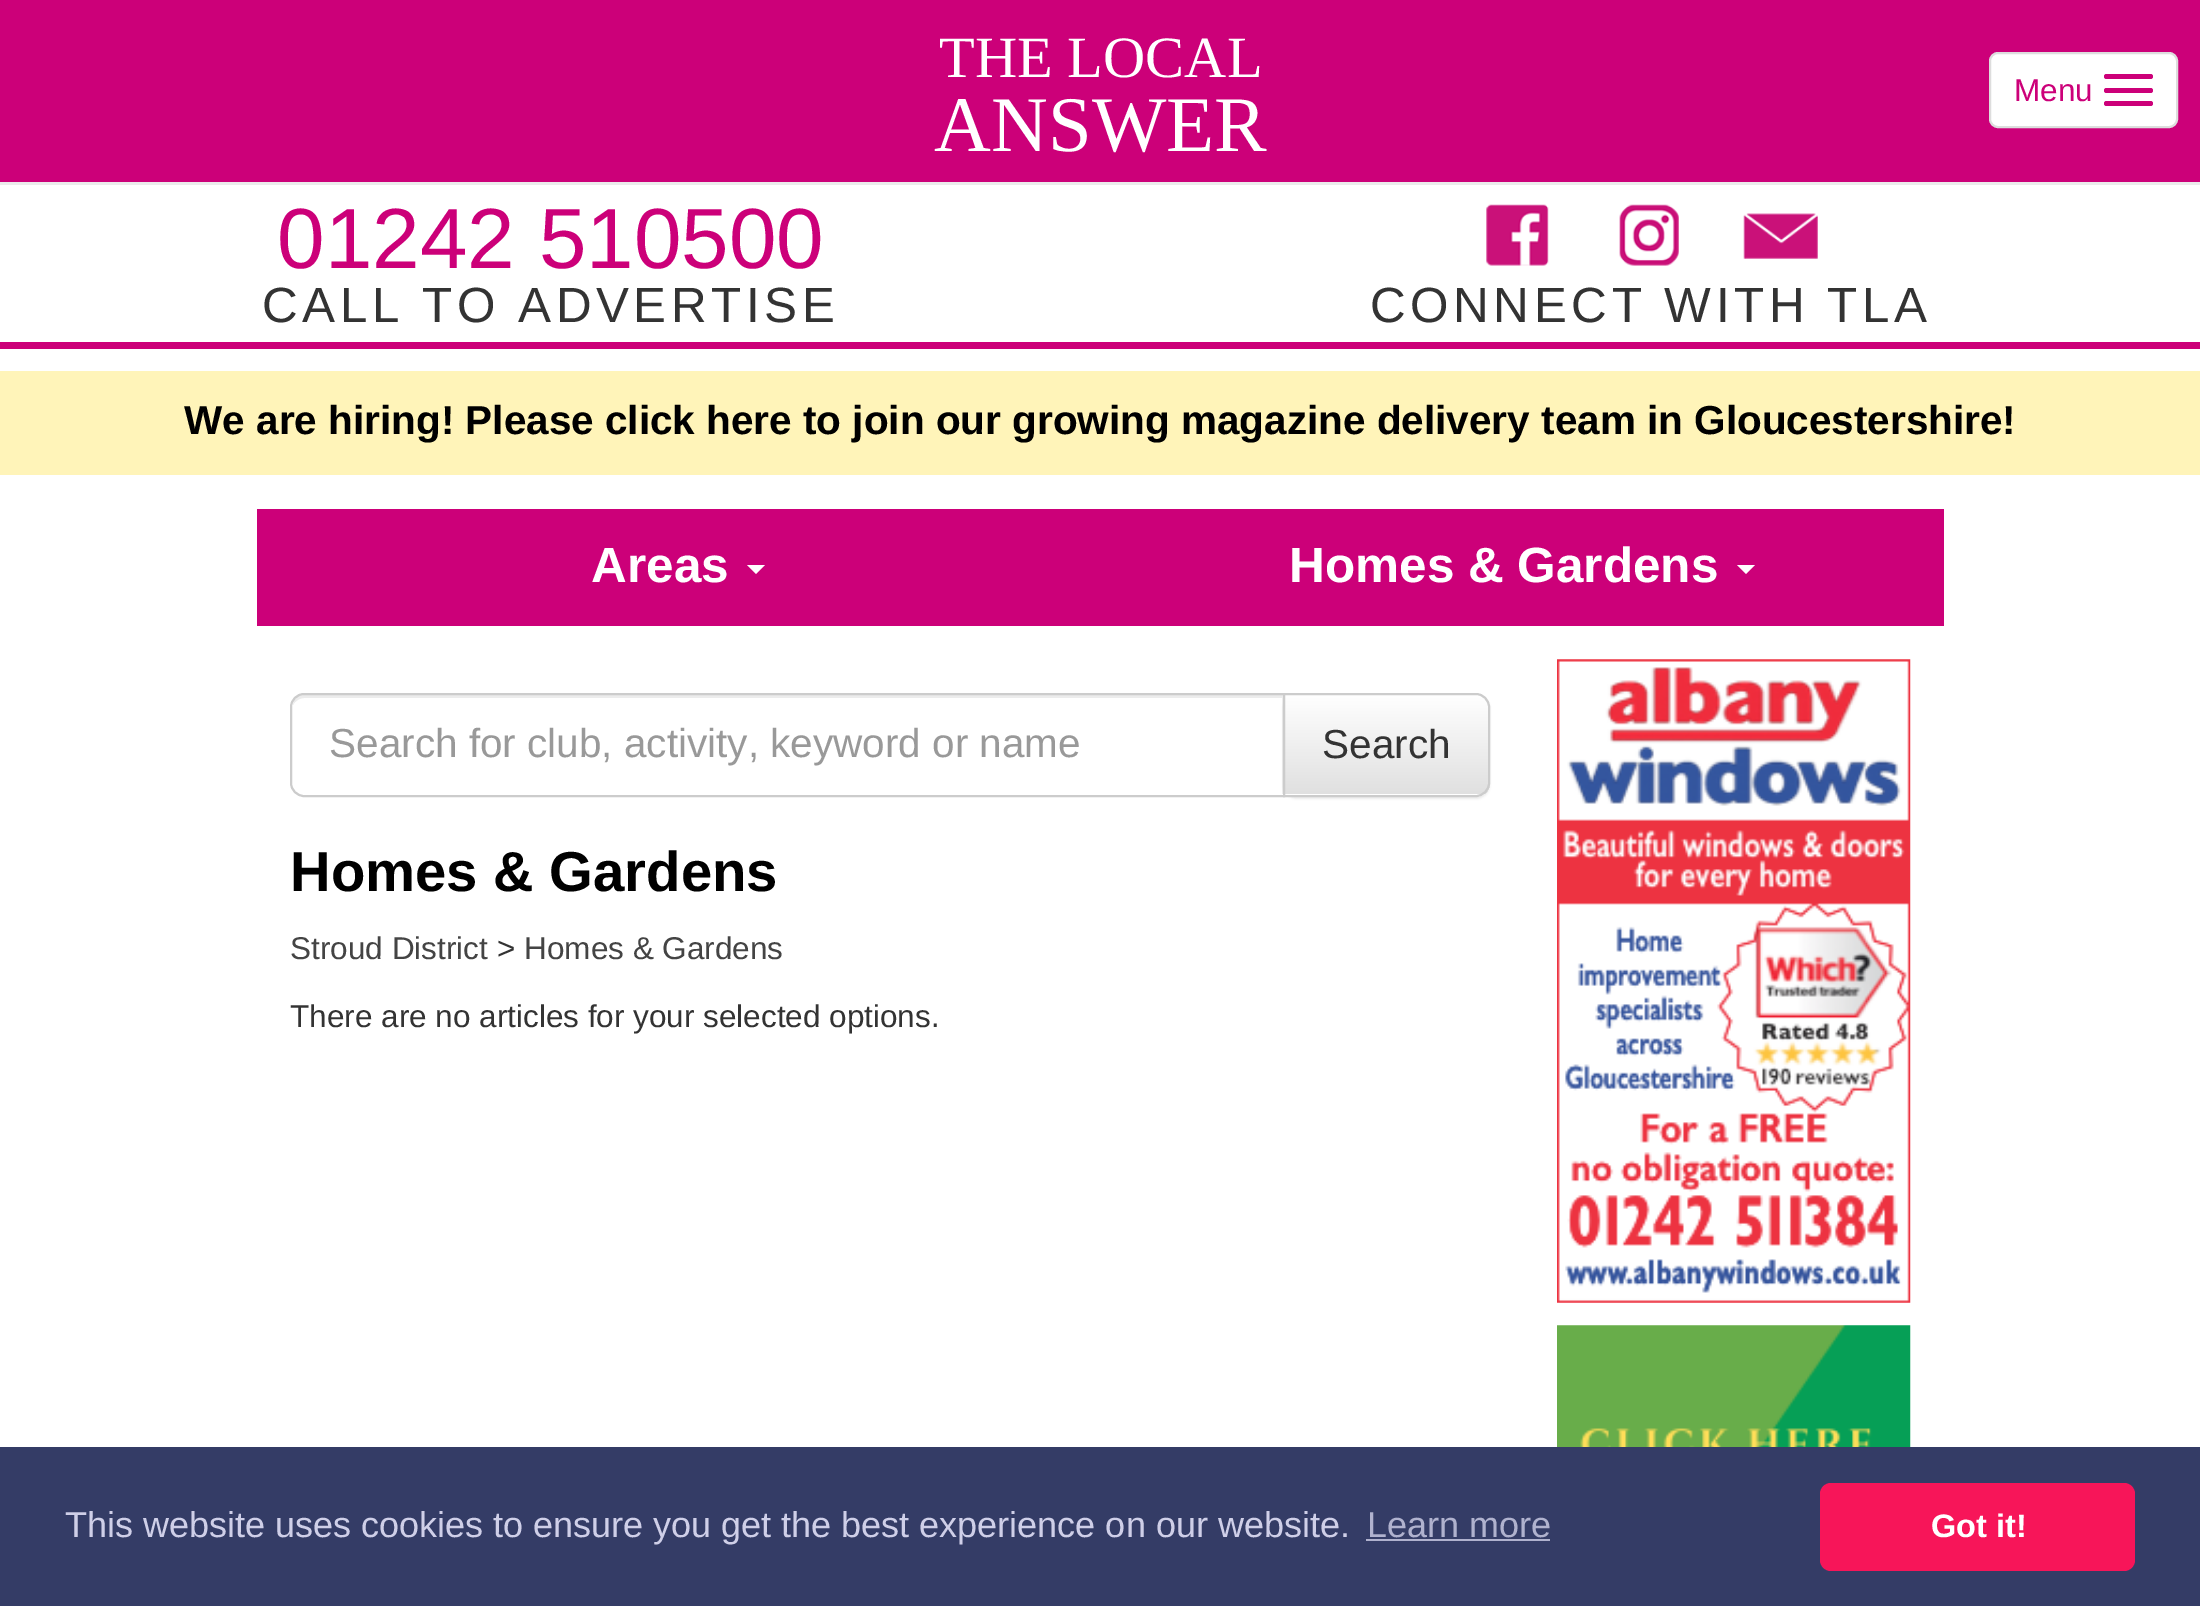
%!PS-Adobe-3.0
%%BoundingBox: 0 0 2200 1606
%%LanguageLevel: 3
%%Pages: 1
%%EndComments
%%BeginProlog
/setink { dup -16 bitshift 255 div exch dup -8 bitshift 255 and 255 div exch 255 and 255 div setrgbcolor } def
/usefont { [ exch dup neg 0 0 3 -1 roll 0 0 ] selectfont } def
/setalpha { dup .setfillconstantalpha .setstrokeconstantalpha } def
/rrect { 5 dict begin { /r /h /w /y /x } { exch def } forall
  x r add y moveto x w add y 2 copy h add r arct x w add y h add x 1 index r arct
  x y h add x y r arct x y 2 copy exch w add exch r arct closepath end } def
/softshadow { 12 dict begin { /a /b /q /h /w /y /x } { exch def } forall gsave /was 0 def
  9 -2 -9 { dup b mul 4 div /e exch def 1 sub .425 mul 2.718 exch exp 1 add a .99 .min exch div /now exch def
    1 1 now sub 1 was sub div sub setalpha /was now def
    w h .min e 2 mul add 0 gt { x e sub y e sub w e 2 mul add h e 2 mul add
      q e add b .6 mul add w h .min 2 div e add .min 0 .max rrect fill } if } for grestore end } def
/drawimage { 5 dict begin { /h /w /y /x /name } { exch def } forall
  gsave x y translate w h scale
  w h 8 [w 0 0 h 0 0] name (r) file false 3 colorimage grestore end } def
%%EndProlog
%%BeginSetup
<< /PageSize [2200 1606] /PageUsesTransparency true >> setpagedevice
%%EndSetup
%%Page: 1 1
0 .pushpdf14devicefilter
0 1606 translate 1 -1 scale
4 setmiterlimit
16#FFFFFF setink
0 0 2200 1606 rectfill
16#EBEBEB setink
0 182 moveto 0 185 lineto 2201 185 lineto 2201 2 lineto 2200 2 lineto 2200 182 lineto closepath fill
16#CC0079 setink
0 0 2200 182 rectfill
/LiberationSerif-Regular 58.5 usefont
16#FFFFFF setink
939 77 moveto (THE LOCAL) show
/LiberationSerif-Regular 78.75 usefont
934 151 moveto (ANSWER) show
1990 53 187 74 8 rrect gsave fill grestore
16#DDDDDD setink
2 setlinewidth
stroke
/LiberationSans-Regular 31.5 usefont
16#CC0079 setink
2014 101 moveto (Menu) show
2104 74 49 5 2.5 rrect fill
2104 88 49 5 2.5 rrect fill
2104 101 49 5 2.5 rrect fill
0 342 2200 7 rectfill
/LiberationSans-Regular 85.5 usefont
277 268 moveto (01242 510500) show
/LiberationSans-Regular 49.5 usefont
16#333333 setink
262 322 moveto 4.5 0 (CALL TO ADVERTISE) ashow
(img1.raw) 1486 204 63 62 drawimage
(img2.raw) 1619 204 60 62 drawimage
(img3.raw) 1743 213 75 46 drawimage
1370 322 moveto 4.5 0 (CONNECT WITH TLA) ashow
16#FFF4B9 setink
0 371 2200 104 rectfill
/LiberationSans-Bold 40.5 usefont
16#000000 setink
184 434 moveto (We are hiring! Please click here to join our growing magazine delivery team in Gloucestershire!) show
16#CC0079 setink
257 509 1687 117 rectfill
/LiberationSans-Bold 49.5 usefont
16#FFFFFF setink
591 582 moveto (Areas) show
747 565 moveto 765 565 lineto 756 574 lineto closepath fill
1289 582 moveto (Homes & Gardens) show
1737 565 moveto 1755 565 lineto 1746 574 lineto closepath fill
16#ECECEC setink
304 698 moveto 1282 698 lineto 1282 794 lineto 1283 794 lineto 1283 695 lineto 304 695 lineto 298 695 294 699 293 705 curveto 295 701 300 698 304 698 curveto closepath fill
16#CCCCCC setink
304 694 moveto 1284 694 lineto 1284 796 lineto 304 796 lineto 297 796 291 790 291 783 curveto 291 707 lineto 291 700 297 694 304 694 curveto closepath stroke
/LiberationSans-Regular 40.5 usefont
16#999999 setink
329 757 moveto (Search for club, activity, keyword or name) show
16#000000 setink
1283 695 207 104 14 1 0.07 softshadow
16#FFFFFF setink
1283 693 moveto 1476 693 lineto 1483.5 693 1490 699.5 1490 707 curveto 1490 783 lineto 1490 790.5 1483.5 797 1476 797 curveto 1283 797 lineto closepath fill
gsave
1283 693 moveto 1476 693 lineto 1483.5 693 1490 699.5 1490 707 curveto 1490 783 lineto 1490 790.5 1483.5 797 1476 797 curveto 1283 797 lineto closepath clip newpath
gsave 1285 695 moveto 1490 695 lineto 1490 794 lineto 1285 794 lineto closepath clip newpath
<< /ShadingType 2 /ColorSpace /DeviceRGB /Coords [1386 695 1386 794] /Extend [true true] /Function << /FunctionType 2 /Domain [0 1] /C0 [1 1 1] /C1 [0.878 0.878 0.878] /N 1 >> >> shfill grestore
grestore
16#CCCCCC setink
1284 694 moveto 1476 694 lineto 1483 694 1489 700 1489 707 curveto 1489 783 lineto 1489 790 1483 796 1476 796 curveto 1284 796 lineto closepath stroke
16#333333 setink
1322 758 moveto (Search) show
/LiberationSans-Bold 56.25 usefont
16#000000 setink
290 891 moveto (Homes & Gardens) show
/LiberationSans-Regular 31.5 usefont
16#444444 setink
290 959 moveto (Stroud District) show
16#333333 setink
497 959 moveto (>) show
16#444444 setink
524 959 moveto (Homes & Gardens) show
16#333333 setink
290 1027 moveto (There are no articles for your selected options.) show
(img4.raw) 1557 659 354 644 drawimage
(img5.raw) 1557 1325 354 122 drawimage
16#343C66 setink
0 1447 2200 159 rectfill
/LiberationSans-Regular 36 usefont
16#CFCFE8 setink
65 1537 moveto (This website uses cookies to ensure you get the best experience on our website.) show
16#B0B2CE setink
1367 1537 moveto (Learn more) show
1366 1539 184 2 rectfill
16#F71559 setink
1820 1483 315 88 11 rrect fill
/LiberationSans-Bold 32.5 usefont
16#FFFFFF setink
1931 1537 moveto (Got it!) show
.poppdf14devicefilter showpage
%%EOF
